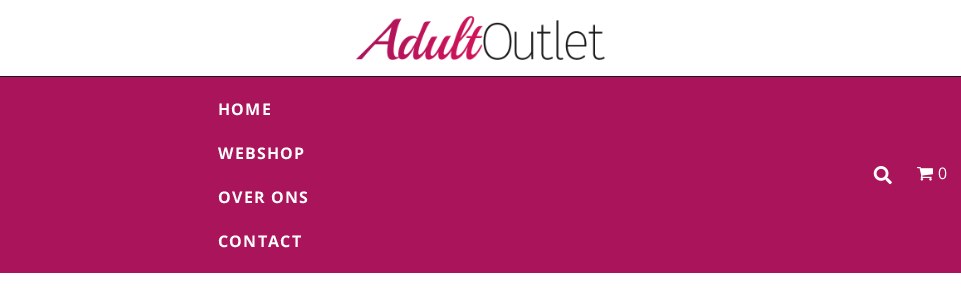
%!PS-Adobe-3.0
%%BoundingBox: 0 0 961 307
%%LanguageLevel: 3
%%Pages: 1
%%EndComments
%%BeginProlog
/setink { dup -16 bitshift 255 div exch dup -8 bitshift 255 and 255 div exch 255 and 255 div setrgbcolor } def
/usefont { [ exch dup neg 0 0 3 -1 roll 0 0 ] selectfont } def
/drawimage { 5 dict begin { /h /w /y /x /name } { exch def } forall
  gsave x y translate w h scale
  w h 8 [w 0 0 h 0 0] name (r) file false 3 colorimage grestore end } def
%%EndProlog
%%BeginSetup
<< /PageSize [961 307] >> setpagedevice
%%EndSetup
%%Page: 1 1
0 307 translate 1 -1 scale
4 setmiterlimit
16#FFFFFF setink
0 0 961 307 rectfill
16#181818 setink
0 76 961 1 rectfill
(img1.raw) 356 16 249 44 drawimage
16#A9145A setink
0 77 961 196 rectfill
/OpenSans-Bold 16 usefont
16#FFFFFF setink
218 115 moveto 1.25 0 (HOME) ashow
218 159 moveto 1.25 0 (WEBSHOP) ashow
218 203 moveto 1.25 0 (OVER ONS) ashow
218 247 moveto 1.25 0 (CONTACT) ashow
(img2.raw) 873 166 19 19 drawimage
(img3.raw) 917 167 16 14 drawimage
/OpenSans-Regular 16 usefont
938 179 moveto (0) show
showpage
%%EOF
